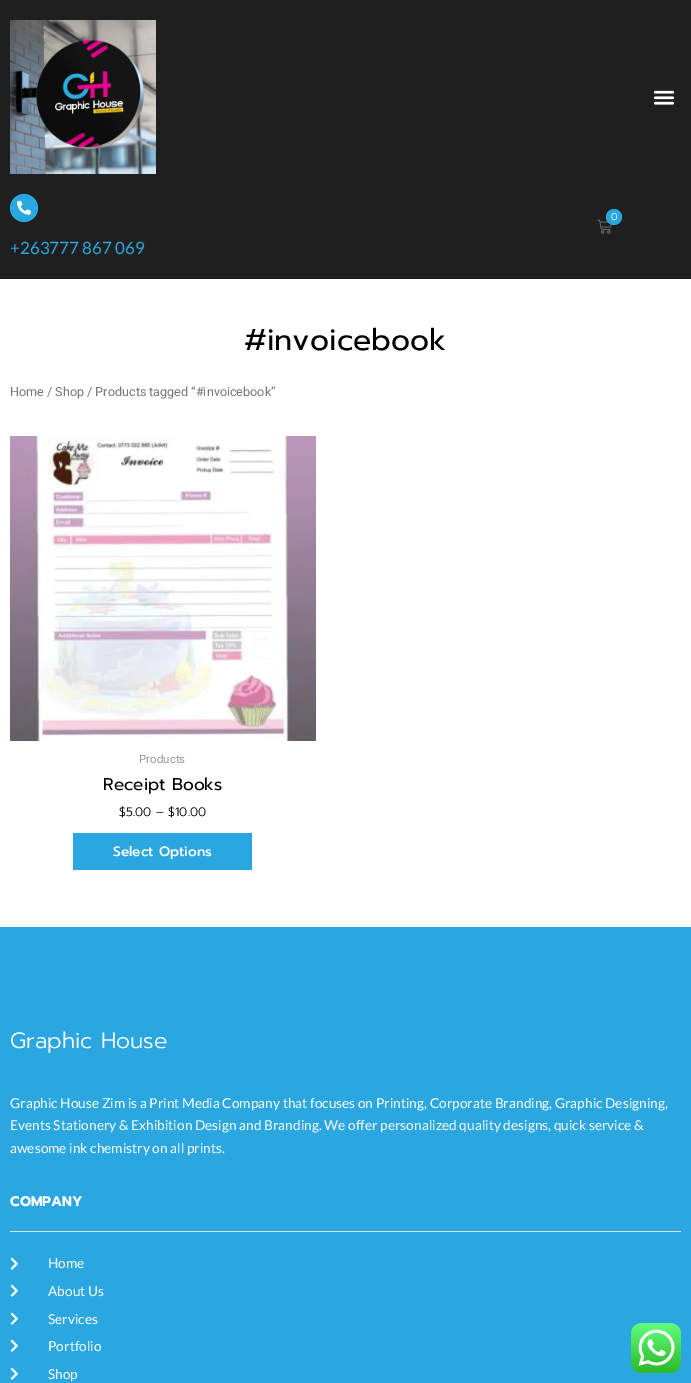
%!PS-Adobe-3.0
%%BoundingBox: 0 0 691 1383
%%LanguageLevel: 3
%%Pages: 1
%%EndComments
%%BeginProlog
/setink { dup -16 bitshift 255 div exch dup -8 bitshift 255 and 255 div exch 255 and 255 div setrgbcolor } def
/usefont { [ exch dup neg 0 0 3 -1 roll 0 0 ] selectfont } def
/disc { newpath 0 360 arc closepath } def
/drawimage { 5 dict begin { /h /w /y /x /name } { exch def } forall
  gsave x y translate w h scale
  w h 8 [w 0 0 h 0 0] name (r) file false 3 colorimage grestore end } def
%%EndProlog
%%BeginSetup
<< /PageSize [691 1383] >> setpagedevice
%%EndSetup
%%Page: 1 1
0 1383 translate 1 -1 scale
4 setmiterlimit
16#FFFFFF setink
0 0 691 1383 rectfill
16#1F1F1F setink
0 0 691 279 rectfill
(img1.raw) 10 20 146 154 drawimage
(img2.raw) 653 90 22 15 drawimage
(img3.raw) 597 219 15 15 drawimage
16#2AA7E1 setink
614 217 8 disc fill
/Prompt-Light 10 usefont
16#FFFFFF setink
611 220 moveto (0) show
16#2AA7E1 setink
24 208 14 disc fill
(img4.raw) 17 200 14 15 drawimage
/Lato-Regular 17 usefont
10 254 moveto (+263777 867 069) show
/Prompt-Regular 30 usefont
16#000000 setink
244 350 moveto (#invoicebook) show
/Roboto-Regular 12.6 usefont
16#777777 setink
10 396 moveto (Home / Shop / Products tagged “#invoicebook”) show
(img5.raw) 10 436 306 305 drawimage
/Roboto-Regular 11.5 usefont
16#93959B setink
139 763 moveto (Products) show
/Prompt-Regular 17 usefont
16#000000 setink
103 790 moveto (Receipt Books) show
/Prompt-Light 12.25 usefont
119 816 moveto ($5.00 – $10.00) show
16#2AA7E1 setink
73 833 179 37 rectfill
/Prompt-Medium 13.7 usefont
16#FFFFFF setink
113 856 moveto (Select Options) show
16#2AA7E1 setink
0 927 691 456 rectfill
/Prompt-Light 22.25 usefont
16#FFFFFF setink
10 1048 moveto (Graphic House) show
/Lato-Regular 13.7 usefont
[
    [(Graphic House Zim is a Print Media Company that focuses on Printing, Corporate Branding, Graphic Designing,) 10 1108]
    [(Events Stationery & Exhibition Design and Branding. We offer personalized quality designs, quick service &) 10 1130]
    [(awesome ink chemistry on all prints.) 10 1153]
] { aload pop moveto show } forall
16#DDDDDD setink
10 1231 671 1 rectfill
/Prompt-Bold 14 usefont
16#FFFFFF setink
10 1206 moveto (COMPANY) show
(img6.raw) 10 1257 8 13 drawimage
/Lato-Regular 13.7 usefont
48 1268 moveto (Home) show
(img6.raw) 10 1284 8 13 drawimage
48 1296 moveto (About Us) show
(img6.raw) 10 1312 8 13 drawimage
48 1324 moveto (Services) show
(img6.raw) 10 1339 8 13 drawimage
48 1351 moveto (Portfolio) show
(img6.raw) 10 1367 8 13 drawimage
48 1379 moveto (Shop) show
(img7.raw) 631 1323 50 50 drawimage
showpage
%%EOF
